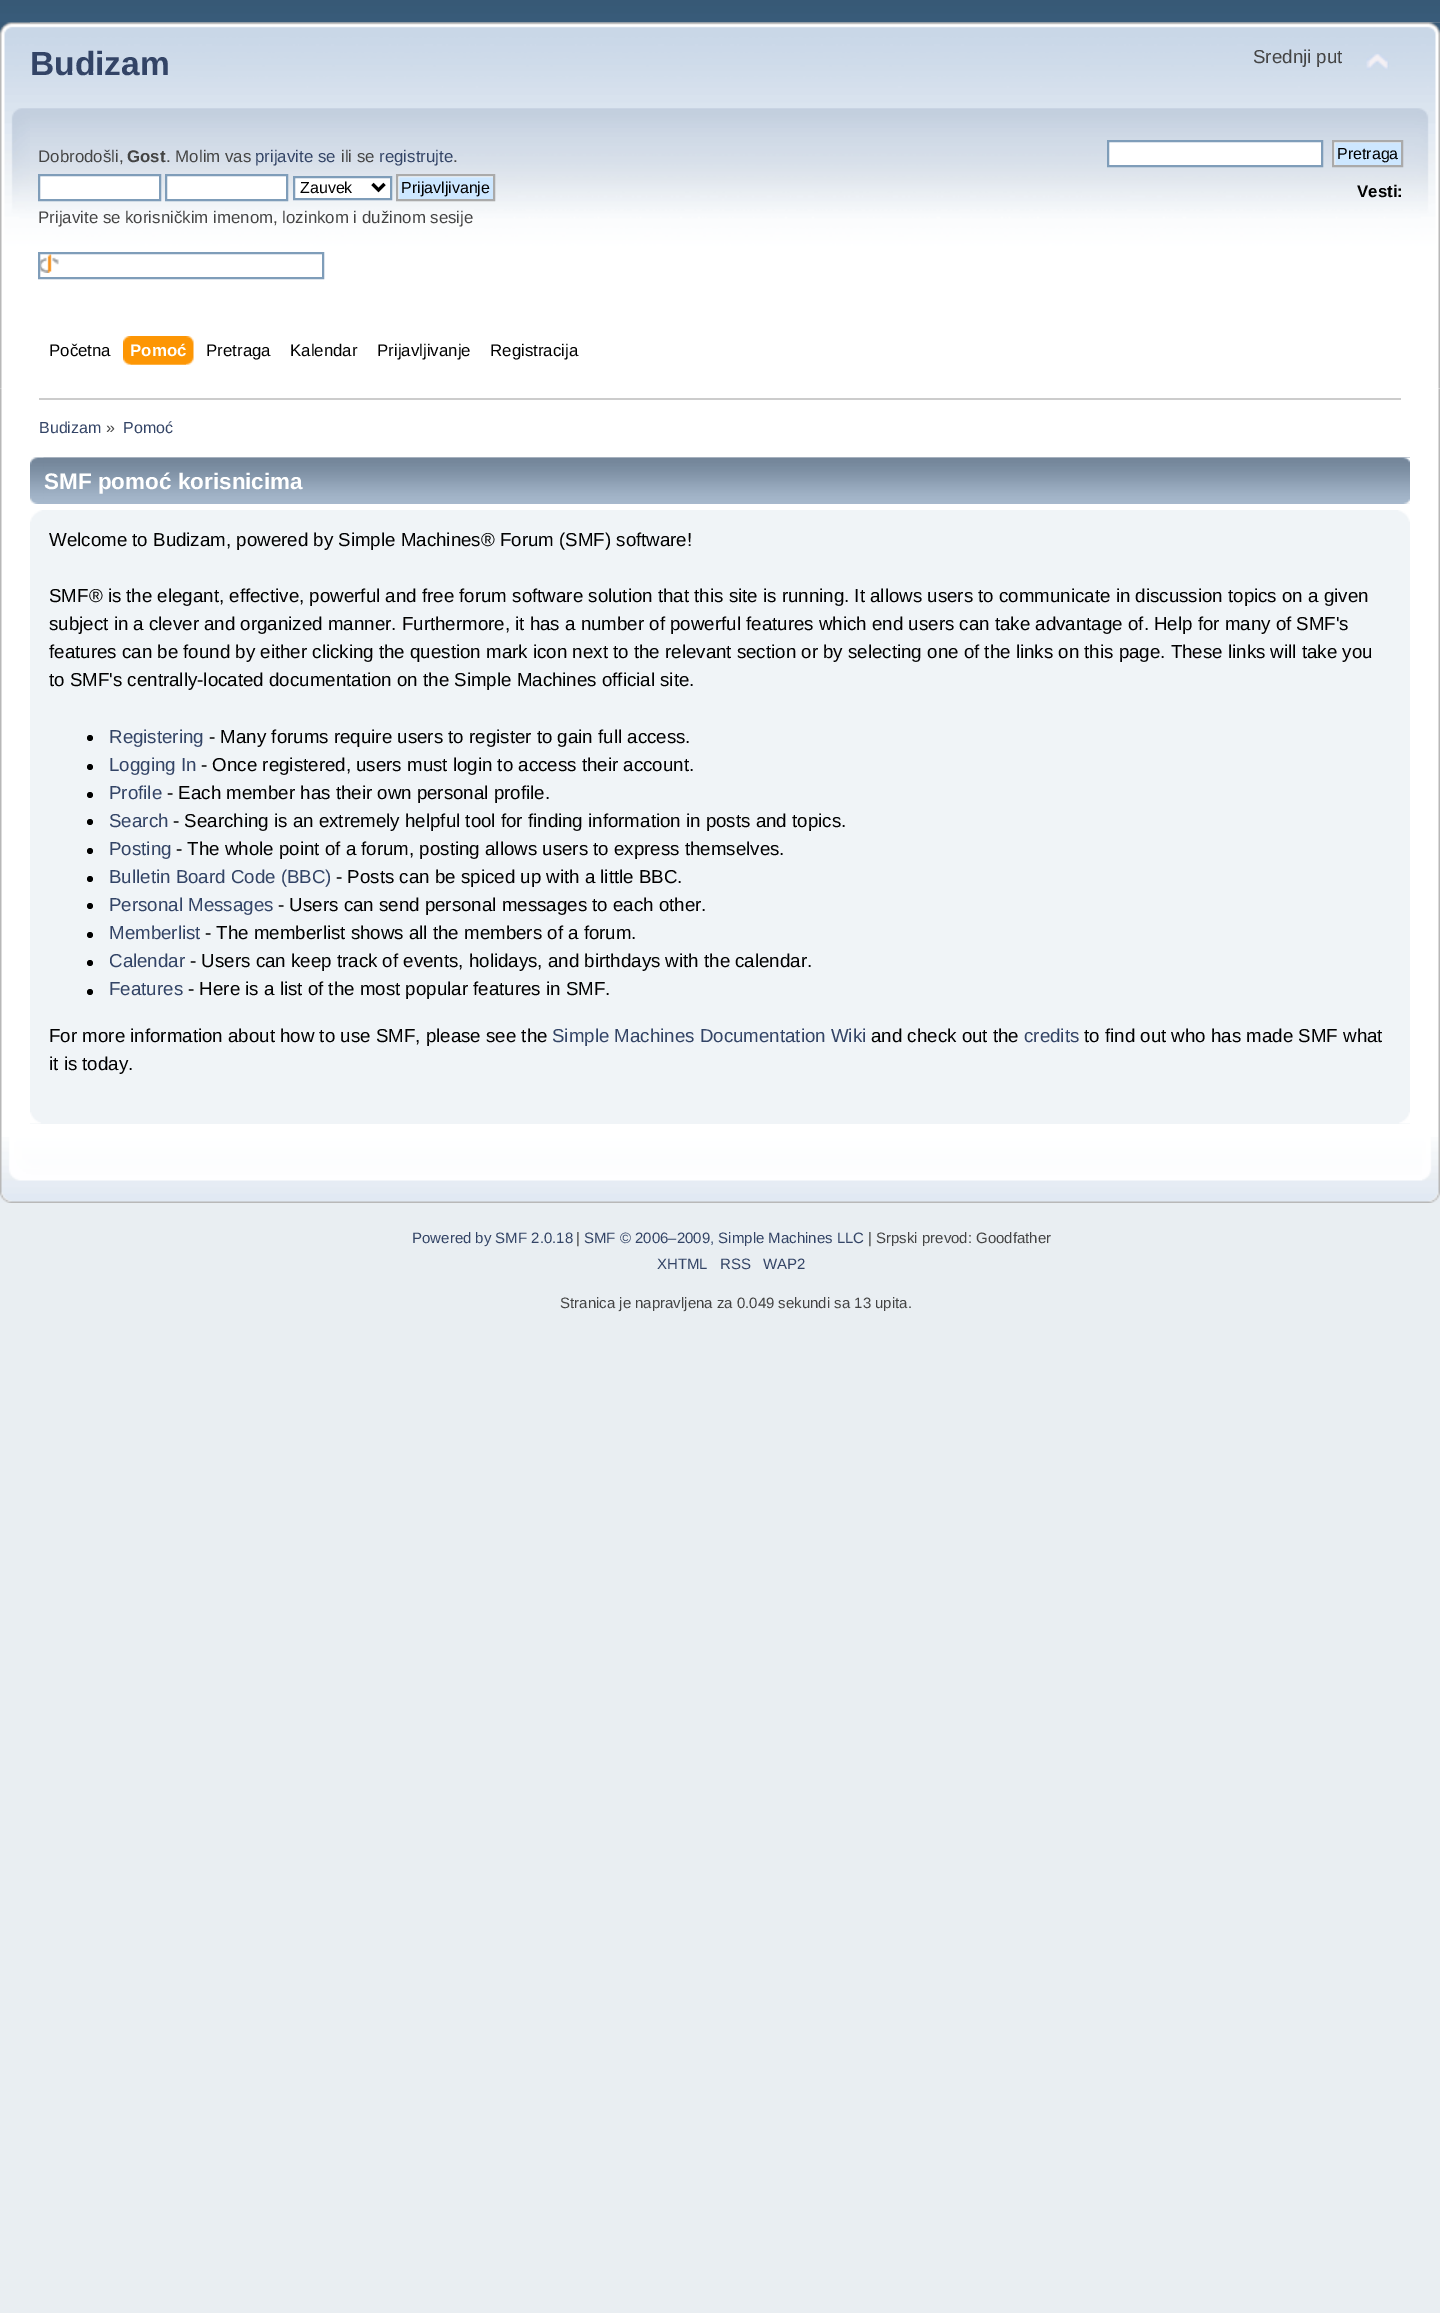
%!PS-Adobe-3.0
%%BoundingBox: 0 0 1440 2313
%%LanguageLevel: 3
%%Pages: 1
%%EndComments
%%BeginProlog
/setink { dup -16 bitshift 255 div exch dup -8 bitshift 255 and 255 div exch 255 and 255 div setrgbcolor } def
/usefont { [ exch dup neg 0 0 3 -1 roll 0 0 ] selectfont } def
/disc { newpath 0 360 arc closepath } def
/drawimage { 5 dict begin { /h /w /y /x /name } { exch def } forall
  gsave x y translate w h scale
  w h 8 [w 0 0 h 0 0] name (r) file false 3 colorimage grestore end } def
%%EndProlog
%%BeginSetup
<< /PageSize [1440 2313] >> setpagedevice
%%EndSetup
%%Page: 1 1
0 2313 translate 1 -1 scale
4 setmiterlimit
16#E9EEF2 setink
0 0 1440 2313 rectfill
(img1.raw) 0 0 1440 389 drawimage
(img2.raw) 0 22 1440 367 drawimage
(img3.raw) 30 22 1410 367 drawimage
/LiberationSans-Bold 33.5 usefont
16#334466 setink
30 75 moveto (Budizam) show
/LiberationSans-Regular 18.72 usefont
16#444444 setink
1253 63 moveto (Srednji put) show
(img4.raw) 1366 53 23 17 drawimage
/LiberationSans-Regular 16.85 usefont
38 162 moveto (Dobrodošli,) show
/LiberationSans-Bold 16.85 usefont
127 162 moveto (Gost) show
/LiberationSans-Regular 16.85 usefont
166 162 moveto (. Molim vas) show
16#334466 setink
255 162 moveto (prijavite se) show
16#444444 setink
341 162 moveto (ili se) show
16#334466 setink
379 162 moveto (registrujte) show
16#444444 setink
453 162 moveto (.) show
16#FFFFFF setink
39 175 moveto 160 175 lineto 160 200 lineto 39 200 lineto closepath gsave fill grestore
16#7F9DB9 setink
2 setlinewidth
stroke
16#FFFFFF setink
166 175 moveto 287 175 lineto 287 200 lineto 166 200 lineto closepath gsave fill grestore
16#7F9DB9 setink
stroke
16#FFFFFF setink
294 177 moveto 391 177 lineto 391 199 lineto 294 199 lineto closepath gsave fill grestore
16#7F9DB9 setink
stroke
16#000000 setink
3 setlinewidth
372.5 184 moveto 378.5 190 lineto 384.5 184 lineto stroke
/LiberationSans-Regular 16 usefont
300 193 moveto (Zauvek) show
(img5.raw) 398 176 95 23 drawimage
16#AAAAAA setink
2 setlinewidth
397 175 97 25 rectstroke
16#000000 setink
401 193 moveto (Prijavljivanje) show
/LiberationSans-Regular 16.85 usefont
16#444444 setink
38 223 moveto (Prijavite se korisničkim imenom, lozinkom i dužinom sesije) show
(img6.raw) 40 254 19 19 drawimage
16#7F9DB9 setink
39 253 284 25 rectstroke
16#FFFFFF setink
1108 141 moveto 1322 141 lineto 1322 166 lineto 1108 166 lineto closepath gsave fill grestore
16#7F9DB9 setink
stroke
(img7.raw) 1334 142 67 23 drawimage
16#AAAAAA setink
1333 141 69 25 rectstroke
/LiberationSans-Regular 16 usefont
16#000000 setink
1337 159 moveto (Pretraga) show
/LiberationSans-Bold 16.85 usefont
1357 197 moveto (Vesti:) show
/LiberationSans-Regular 16.85 usefont
49 356 moveto (Početna) show
(img8.raw) 130 336 64 29 drawimage
(img9.raw) 123 336 63 29 drawimage
/LiberationSans-Bold 16.85 usefont
16#FFFFFF setink
130 356 moveto (Pomoć) show
/LiberationSans-Regular 16.85 usefont
16#000000 setink
[
    [(Pretraga) 206 356]
    [(Kalendar) 290 356]
    [(Prijavljivanje) 377 356]
    [(Registracija) 490 356]
] { aload pop moveto show } forall
(img10.raw) 0 388 1440 749 drawimage
(img11.raw) 1438 388 2 749 drawimage
16#CCCCCC setink
39 398 1362 2 rectfill
/LiberationSans-Regular 16 usefont
16#334466 setink
39 433 moveto (Budizam) show
16#444444 setink
106 433 moveto (») show
16#334466 setink
123 433 moveto (Pomoć) show
(img12.raw) 30 457 1380 47 drawimage
(img13.raw) 43 457 1367 47 drawimage
/LiberationSans-Bold 22.5 usefont
16#FFFFFF setink
44 489 moveto (SMF pomoć korisnicima) show
16#F0F4F7 setink
30 510 1380 614 rectfill
(img14.raw) 30 510 12 12 drawimage
(img15.raw) 1398 510 12 12 drawimage
/LiberationSans-Regular 18.72 usefont
16#000000 setink
[
    [(Welcome to Budizam, powered by Simple Machines® Forum \(SMF\) software!) 49 546]
    [(SMF® is the elegant, effective, powerful and free forum software solution that this site is running. It allows users to communicate in discussion topics on a given) 49 602]
    [(subject in a clever and organized manner. Furthermore, it has a number of powerful features which end users can take advantage of. Help for many of SMF's) 49 630]
    [(features can be found by either clicking the question mark icon next to the relevant section or by selecting one of the links on this page. These links will take you) 49 658]
    [(to SMF's centrally-located documentation on the Simple Machines official site.) 49 686]
] { aload pop moveto show } forall
90 738 3 disc fill
16#334466 setink
109 743 moveto (Registering) show
16#000000 setink
209 743 moveto (- Many forums require users to register to gain full access.) show
90 767 3 disc fill
16#334466 setink
109 771 moveto (Logging In) show
16#000000 setink
201 771 moveto (- Once registered, users must login to access their account.) show
90 795 3 disc fill
16#334466 setink
109 799 moveto (Profile) show
16#000000 setink
167 799 moveto (- Each member has their own personal profile.) show
90 822 3 disc fill
16#334466 setink
109 827 moveto (Search) show
16#000000 setink
173 827 moveto (- Searching is an extremely helpful tool for finding information in posts and topics.) show
90 851 3 disc fill
16#334466 setink
109 855 moveto (Posting) show
16#000000 setink
176 855 moveto (- The whole point of a forum, posting allows users to express themselves.) show
90 879 3 disc fill
16#334466 setink
109 883 moveto (Bulletin Board Code \(BBC\)) show
16#000000 setink
336 883 moveto (- Posts can be spiced up with a little BBC.) show
90 906 3 disc fill
16#334466 setink
109 911 moveto (Personal Messages) show
16#000000 setink
278 911 moveto (- Users can send personal messages to each other.) show
90 935 3 disc fill
16#334466 setink
109 939 moveto (Memberlist) show
16#000000 setink
205 939 moveto (- The memberlist shows all the members of a forum.) show
90 963 3 disc fill
16#334466 setink
109 967 moveto (Calendar) show
16#000000 setink
190 967 moveto (- Users can keep track of events, holidays, and birthdays with the calendar.) show
90 992 3 disc fill
16#334466 setink
109 995 moveto (Features) show
16#000000 setink
188 995 moveto (- Here is a list of the most popular features in SMF.) show
49 1042 moveto (For more information about how to use SMF, please see the) show
16#334466 setink
552 1042 moveto (Simple Machines Documentation Wiki) show
16#000000 setink
871 1042 moveto (and check out the) show
16#334466 setink
1024 1042 moveto (credits) show
16#000000 setink
1084 1042 moveto (to find out who has made SMF what) show
49 1070 moveto (it is today.) show
(img16.raw) 30 1112 11 12 drawimage
(img17.raw) 1399 1112 11 12 drawimage
(img18.raw) 0 1137 1422 66 drawimage
(img19.raw) 1422 1137 18 66 drawimage
/LiberationSans-Regular 15 usefont
16#334466 setink
412 1243 moveto (Powered by SMF 2.0.18) show
16#444444 setink
576 1243 moveto (|) show
16#334466 setink
584 1243 moveto (SMF © 2006–2009, Simple Machines LLC) show
16#444444 setink
868 1243 moveto (| Srpski prevod: Goodfather) show
16#334466 setink
[
    [(XHTML) 657 1269]
    [(RSS) 720 1269]
    [(WAP2) 763 1269]
] { aload pop moveto show } forall
16#444444 setink
560 1308 moveto (Stranica je napravljena za 0.049 sekundi sa 13 upita.) show
showpage
%%EOF
